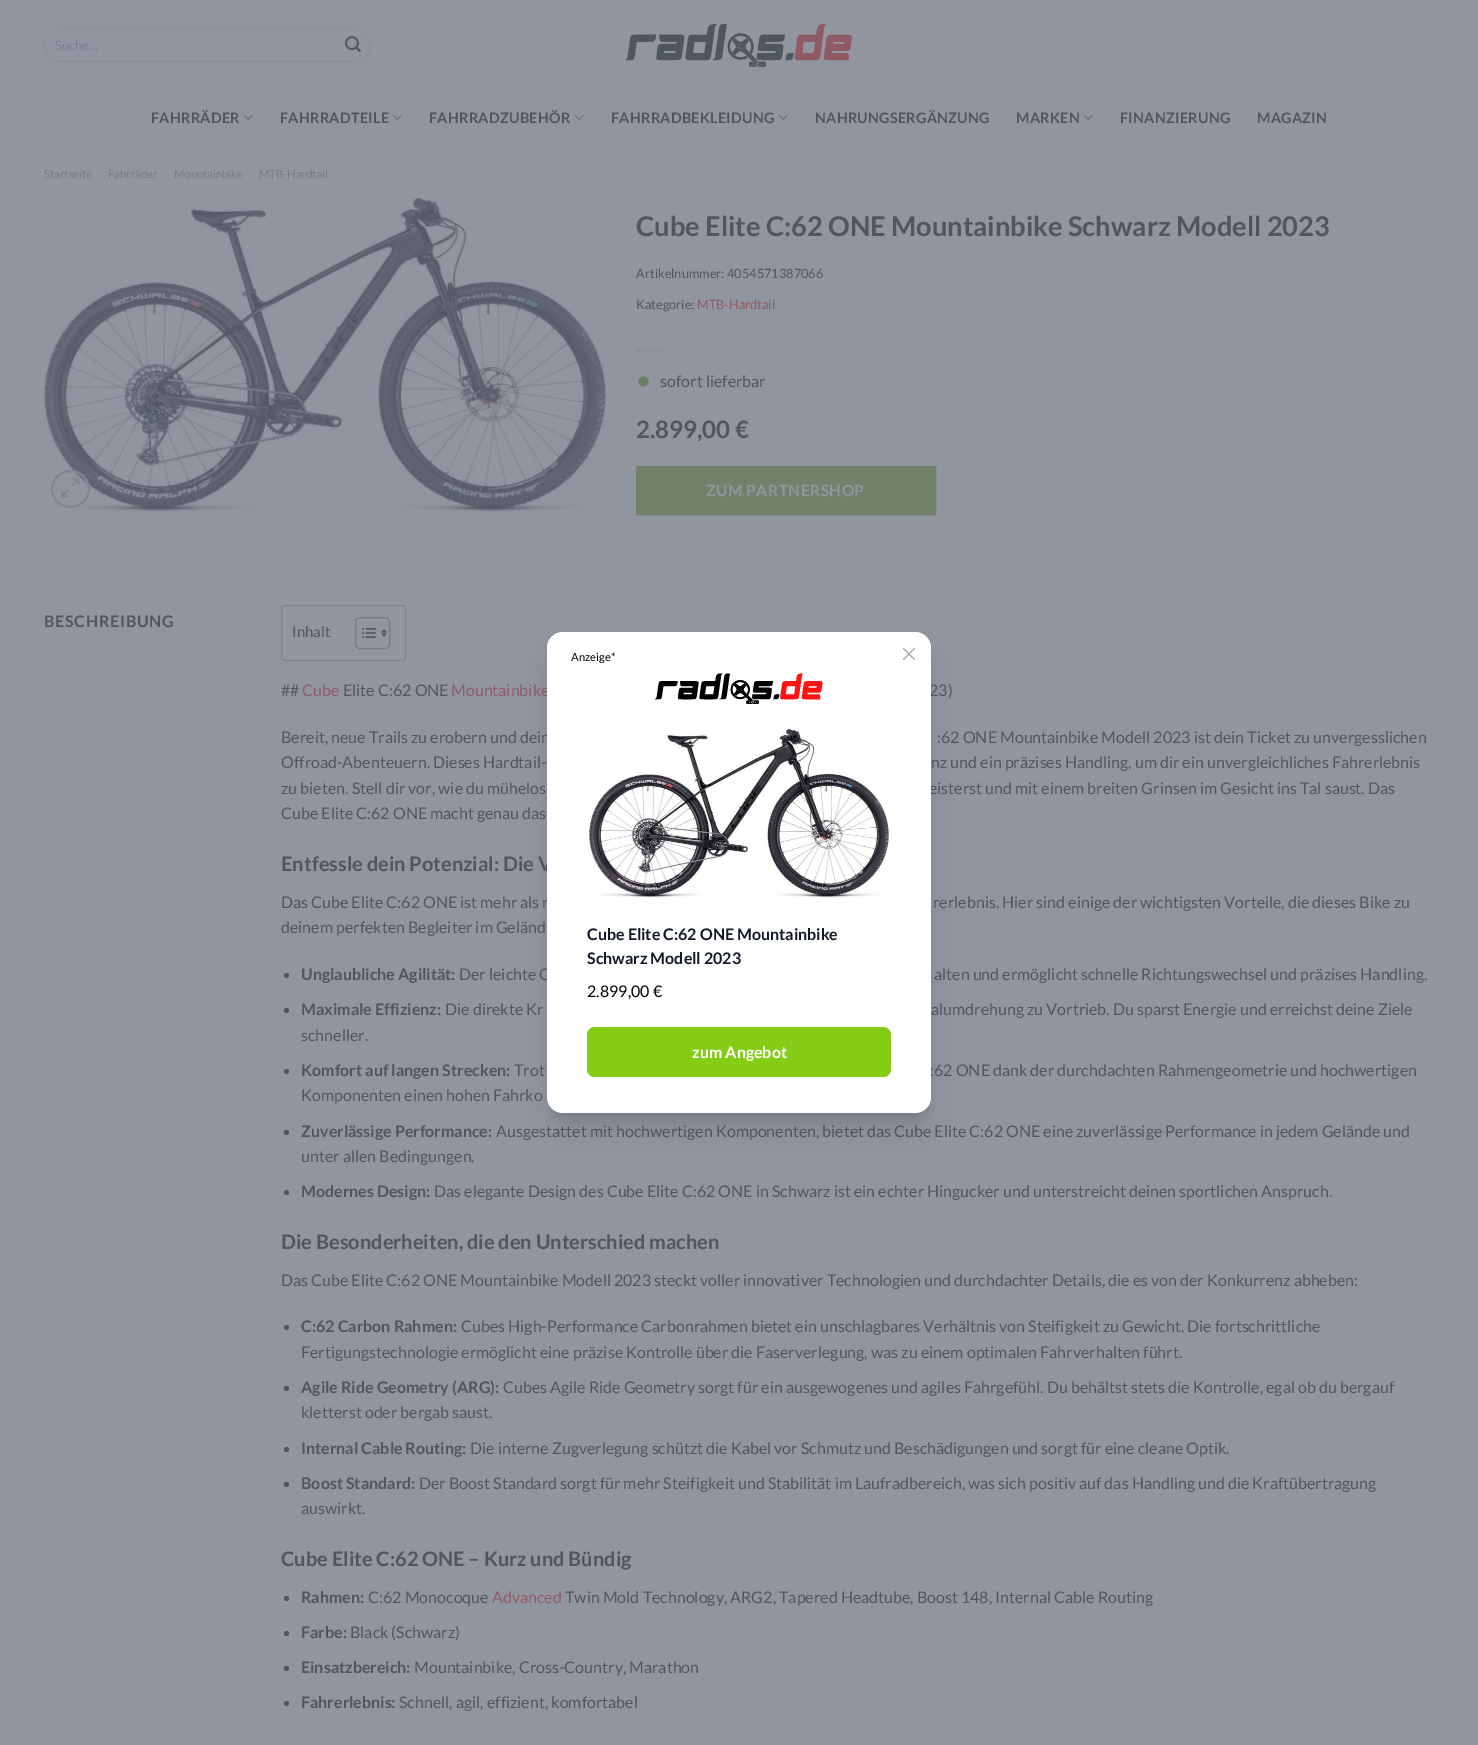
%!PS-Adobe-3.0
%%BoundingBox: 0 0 1478 1745
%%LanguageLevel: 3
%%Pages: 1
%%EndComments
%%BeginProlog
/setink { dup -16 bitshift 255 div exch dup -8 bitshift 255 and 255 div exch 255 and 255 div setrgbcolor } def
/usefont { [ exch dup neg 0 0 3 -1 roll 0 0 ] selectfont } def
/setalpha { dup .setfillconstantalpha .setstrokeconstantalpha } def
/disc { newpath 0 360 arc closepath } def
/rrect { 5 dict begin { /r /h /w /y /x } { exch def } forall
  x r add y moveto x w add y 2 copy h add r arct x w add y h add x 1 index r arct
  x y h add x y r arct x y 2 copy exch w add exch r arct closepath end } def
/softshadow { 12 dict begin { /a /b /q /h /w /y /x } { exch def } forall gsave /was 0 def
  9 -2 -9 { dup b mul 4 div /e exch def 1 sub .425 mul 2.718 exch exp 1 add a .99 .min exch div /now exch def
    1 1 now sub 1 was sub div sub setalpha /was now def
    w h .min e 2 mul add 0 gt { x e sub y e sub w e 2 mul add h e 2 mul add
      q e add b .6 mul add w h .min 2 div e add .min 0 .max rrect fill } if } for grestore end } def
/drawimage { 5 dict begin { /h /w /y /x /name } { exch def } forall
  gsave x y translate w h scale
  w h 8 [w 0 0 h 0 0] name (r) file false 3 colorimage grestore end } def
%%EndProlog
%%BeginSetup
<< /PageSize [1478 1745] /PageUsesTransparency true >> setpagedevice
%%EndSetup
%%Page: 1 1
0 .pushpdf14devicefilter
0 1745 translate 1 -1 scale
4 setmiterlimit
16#9095A0 setink
0 0 1478 1745 rectfill
0.09 setalpha
16#505660 setink
44.5 28.5 326 33 16.5 rrect stroke
/Lato-Regular 13 usefont
1 setalpha
16#777E8C setink
55 50 moveto (Suche…) show
(img1.raw) 345 36 16 16 drawimage
(img2.raw) 625 24 227 43 drawimage
16#8A8F9A setink
44 90 1390 1 rectfill
/Lato-Bold 14.4 usefont
16#505660 setink
151 123 moveto 0.25 0 (FAHRRÄDER) ashow
(img3.raw) 243 114 10 6 drawimage
280 123 moveto 0.25 0 (FAHRRADTEILE) ashow
(img3.raw) 392 114 10 6 drawimage
429 123 moveto 0.25 0 (FAHRRADZUBEHÖR) ashow
(img3.raw) 574 114 10 6 drawimage
611 123 moveto 0.25 0 (FAHRRADBEKLEIDUNG) ashow
(img3.raw) 778 114 10 6 drawimage
815 123 moveto 0.25 0 (NAHRUNGSERGÄNZUNG) ashow
1016 123 moveto 0.25 0 (MARKEN) ashow
(img3.raw) 1083 114 10 6 drawimage
1120 123 moveto 0.25 0 (FINANZIERUNG) ashow
1257 123 moveto 0.25 0 (MAGAZIN) ashow
/Lato-Regular 11.25 usefont
16#757B85 setink
[
    [(Startseite) 44 178]
    [(Fahrräder) 108 178]
    [(Mountainbike) 174 178]
    [(MTB-Hardtail) 259 178]
] { aload pop moveto show } forall
(img4.raw) 44 198 562 315 drawimage
16#808690 setink
2 setlinewidth
52 471 37 36 18 rrect stroke
(img5.raw) 61 478 19 20 drawimage
/Lato-Bold 27.2 usefont
16#505660 setink
636 236 moveto (Cube Elite C:62 ONE Mountainbike Schwarz Modell 2023) show
16#888D97 setink
1 setlinewidth
[1 1] 0 setdash
636 257.5 moveto 1434 257.5 lineto stroke
/Lato-Regular 12.75 usefont
16#505660 setink
636 278 moveto (Artikelnummer: 4054571387066) show
16#888D97 setink
636 288.5 moveto 1434 288.5 lineto stroke
16#505660 setink
636 309 moveto (Kategorie:) show
16#905B65 setink
697 309 moveto (MTB-Hardtail) show
16#8A8F9A setink
636 349 30 3 rectfill
16#6A7E63 setink
643.5 381.5 5 disc fill
/Lato-Regular 16 usefont
16#505660 setink
660 387 moveto (sofort lieferbar) show
/Lato-Bold 24 usefont
636 438 moveto (2.899,00 €) show
16#72826A setink
636.5 466.5 moveto 935.5 466.5 lineto 935.5 514.5 lineto 636.5 514.5 lineto closepath gsave fill grestore
16#70806A setink
[] 0 setdash
stroke
/Lato-Bold 15.5 usefont
16#9095A0 setink
706 496 moveto 0.5 0 (ZUM PARTNERSHOP) ashow
16#8B919B setink
44 580 1390 1 rectfill
/Lato-Bold 16 usefont
16#505660 setink
44 627 moveto 0.75 0 (BESCHREIBUNG) ashow
16#7E838E setink
281.5 605.5 124 55 3.5 rrect stroke
/Lato-Regular 15 usefont
16#505660 setink
292 637 moveto (Inhalt) show
16#777A84 setink
355.5 617.5 34 31 4.5 rrect stroke
(img6.raw) 362 628 14 10 drawimage
(img7.raw) 381 629 6 8 drawimage
/Lato-Regular 16 usefont
16#505660 setink
281 696 moveto (##) show
16#905B65 setink
302 696 moveto (Cube) show
16#505660 setink
343 696 moveto (Elite C:62 ONE) show
16#905B65 setink
451 696 moveto (Mountainbike) show
16#505660 setink
[
    [(23\)) 929 696]
    [(Bereit, neue Trails zu erobern und dein) 281 743]
    [(:62 ONE Mountainbike Modell 2023 ist dein Ticket zu unvergesslichen) 937 743]
    [(Offroad-Abenteuern. Dieses Hardtail-) 281 768]
    [(nz und ein präzises Handling, um dir ein unvergleichliches Fahrerlebnis) 931 768]
    [(zu bieten. Stell dir vor, wie du mühelos) 281 794]
    [(eisterst und mit einem breiten Grinsen im Gesicht ins Tal saust. Das) 929 794]
    [(Cube Elite C:62 ONE macht genau das) 281 819]
] { aload pop moveto show } forall
/Lato-Bold 20 usefont
281 871 moveto (Entfessle dein Potenzial: Die V) show
/Lato-Regular 16 usefont
[
    [(Das Cube Elite C:62 ONE ist mehr als n) 281 908]
    [(rerlebnis. Hier sind einige der wichtigsten Vorteile, die dieses Bike zu) 933 908]
    [(deinem perfekten Begleiter im Geländ) 281 933]
] { aload pop moveto show } forall
286.5 975.5 2.5 disc fill
/Lato-Bold 16 usefont
301 980 moveto (Unglaubliche Agilität:) show
/Lato-Regular 16 usefont
459 980 moveto (Der leichte C) show
934 980 moveto (alten und ermöglicht schnelle Richtungswechsel und präzises Handling.) show
286.5 1010.5 2.5 disc fill
/Lato-Bold 16 usefont
301 1015 moveto (Maximale Effizienz:) show
/Lato-Regular 16 usefont
[
    [(Die direkte Kr) 445 1015]
    [(alumdrehung zu Vortrieb. Du sparst Energie und erreichst deine Ziele) 931 1015]
    [(schneller.) 301 1041]
] { aload pop moveto show } forall
286.5 1071.5 2.5 disc fill
/Lato-Bold 16 usefont
301 1076 moveto (Komfort auf langen Strecken:) show
/Lato-Regular 16 usefont
[
    [(Trot) 514 1076]
    [(:62 ONE dank der durchdachten Rahmengeometrie und hochwertigen) 930 1076]
    [(Komponenten einen hohen Fahrko) 301 1101]
] { aload pop moveto show } forall
286.5 1132.5 2.5 disc fill
/Lato-Bold 16 usefont
301 1137 moveto (Zuverlässige Performance:) show
/Lato-Regular 16 usefont
496 1137 moveto (Ausgestattet mit hochwertigen Komponenten, bietet das Cube Elite C:62 ONE eine zuverlässige Performance in jedem Gelände und) show
301 1162 moveto (unter allen Bedingungen.) show
286.5 1192.5 2.5 disc fill
/Lato-Bold 16 usefont
301 1197 moveto (Modernes Design:) show
/Lato-Regular 16 usefont
434 1197 moveto (Das elegante Design des Cube Elite C:62 ONE in Schwarz ist ein echter Hingucker und unterstreicht deinen sportlichen Anspruch.) show
/Lato-Bold 20 usefont
281 1249 moveto (Die Besonderheiten, die den Unterschied machen) show
/Lato-Regular 16 usefont
281 1286 moveto (Das Cube Elite C:62 ONE Mountainbike Modell 2023 steckt voller innovativer Technologien und durchdachter Details, die es von der Konkurrenz abheben:) show
286.5 1327.5 2.5 disc fill
/Lato-Bold 16 usefont
301 1332 moveto (C:62 Carbon Rahmen:) show
/Lato-Regular 16 usefont
461 1332 moveto (Cubes High-Performance Carbonrahmen bietet ein unschlagbares Verhältnis von Steifigkeit zu Gewicht. Die fortschrittliche) show
301 1358 moveto (Fertigungstechnologie ermöglicht eine präzise Kontrolle über die Faserverlegung, was zu einem optimalen Fahrverhalten führt.) show
286.5 1388.5 2.5 disc fill
/Lato-Bold 16 usefont
301 1393 moveto (Agile Ride Geometry \(ARG\):) show
/Lato-Regular 16 usefont
503 1393 moveto (Cubes Agile Ride Geometry sorgt für ein ausgewogenes und agiles Fahrgefühl. Du behältst stets die Kontrolle, egal ob du bergauf) show
301 1418 moveto (kletterst oder bergab saust.) show
286.5 1449.5 2.5 disc fill
/Lato-Bold 16 usefont
301 1454 moveto (Internal Cable Routing:) show
/Lato-Regular 16 usefont
470 1454 moveto (Die interne Zugverlegung schützt die Kabel vor Schmutz und Beschädigungen und sorgt für eine cleane Optik.) show
286.5 1484.5 2.5 disc fill
/Lato-Bold 16 usefont
301 1489 moveto (Boost Standard:) show
/Lato-Regular 16 usefont
419 1489 moveto (Der Boost Standard sorgt für mehr Steifigkeit und Stabilität im Laufradbereich, was sich positiv auf das Handling und die Kraftübertragung) show
301 1514 moveto (auswirkt.) show
/Lato-Bold 20 usefont
281 1566 moveto (Cube Elite C:62 ONE – Kurz und Bündig) show
286.5 1598.5 2.5 disc fill
/Lato-Bold 16 usefont
301 1603 moveto (Rahmen:) show
/Lato-Regular 16 usefont
368 1603 moveto (C:62 Monocoque) show
16#905B65 setink
492 1603 moveto (Advanced) show
16#505660 setink
565 1603 moveto (Twin Mold Technology, ARG2, Tapered Headtube, Boost 148, Internal Cable Routing) show
286.5 1633.5 2.5 disc fill
/Lato-Bold 16 usefont
301 1638 moveto (Farbe:) show
/Lato-Regular 16 usefont
350 1638 moveto (Black \(Schwarz\)) show
286.5 1668.5 2.5 disc fill
/Lato-Bold 16 usefont
301 1673 moveto (Einsatzbereich:) show
/Lato-Regular 16 usefont
414 1673 moveto (Mountainbike, Cross-Country, Marathon) show
286.5 1703.5 2.5 disc fill
/Lato-Bold 16 usefont
301 1708 moveto (Fahrerlebnis:) show
/Lato-Regular 16 usefont
399 1708 moveto (Schnell, agil, effizient, komfortabel) show
16#000000 setink
553 646 372 469 10 5 0.1 softshadow
552 657 374 471 11 12.5 0.1 softshadow
16#FFFFFF setink
547 632 384 481 16 rrect fill
/Lato-Regular 11.25 usefont
16#000000 setink
571 661 moveto (Anzeige*) show
16#9CA3AF setink
0.8 setlinewidth
1 setlinecap
1 setlinejoin
903.5 659.5 moveto 914.5 648.5 lineto 903.5 648.5 moveto 914.5 659.5 lineto stroke
(img8.raw) 655 673 168 31 drawimage
(img9.raw) 589 729 300 169 drawimage
/Lato-Bold 16 usefont
16#111827 setink
587 940 moveto (Cube Elite C:62 ONE Mountainbike) show
587 964 moveto (Schwarz Modell 2023) show
/Lato-Regular 16 usefont
16#000000 setink
587 997 moveto (2.899,00 €) show
587 1028 304 50 8 1 0.05 softshadow
16#84CC16 setink
587 1027 304 50 8 rrect fill
/Lato-Bold 16 usefont
16#FFFFFF setink
692 1058 moveto (zum Angebot) show
.poppdf14devicefilter showpage
%%EOF
